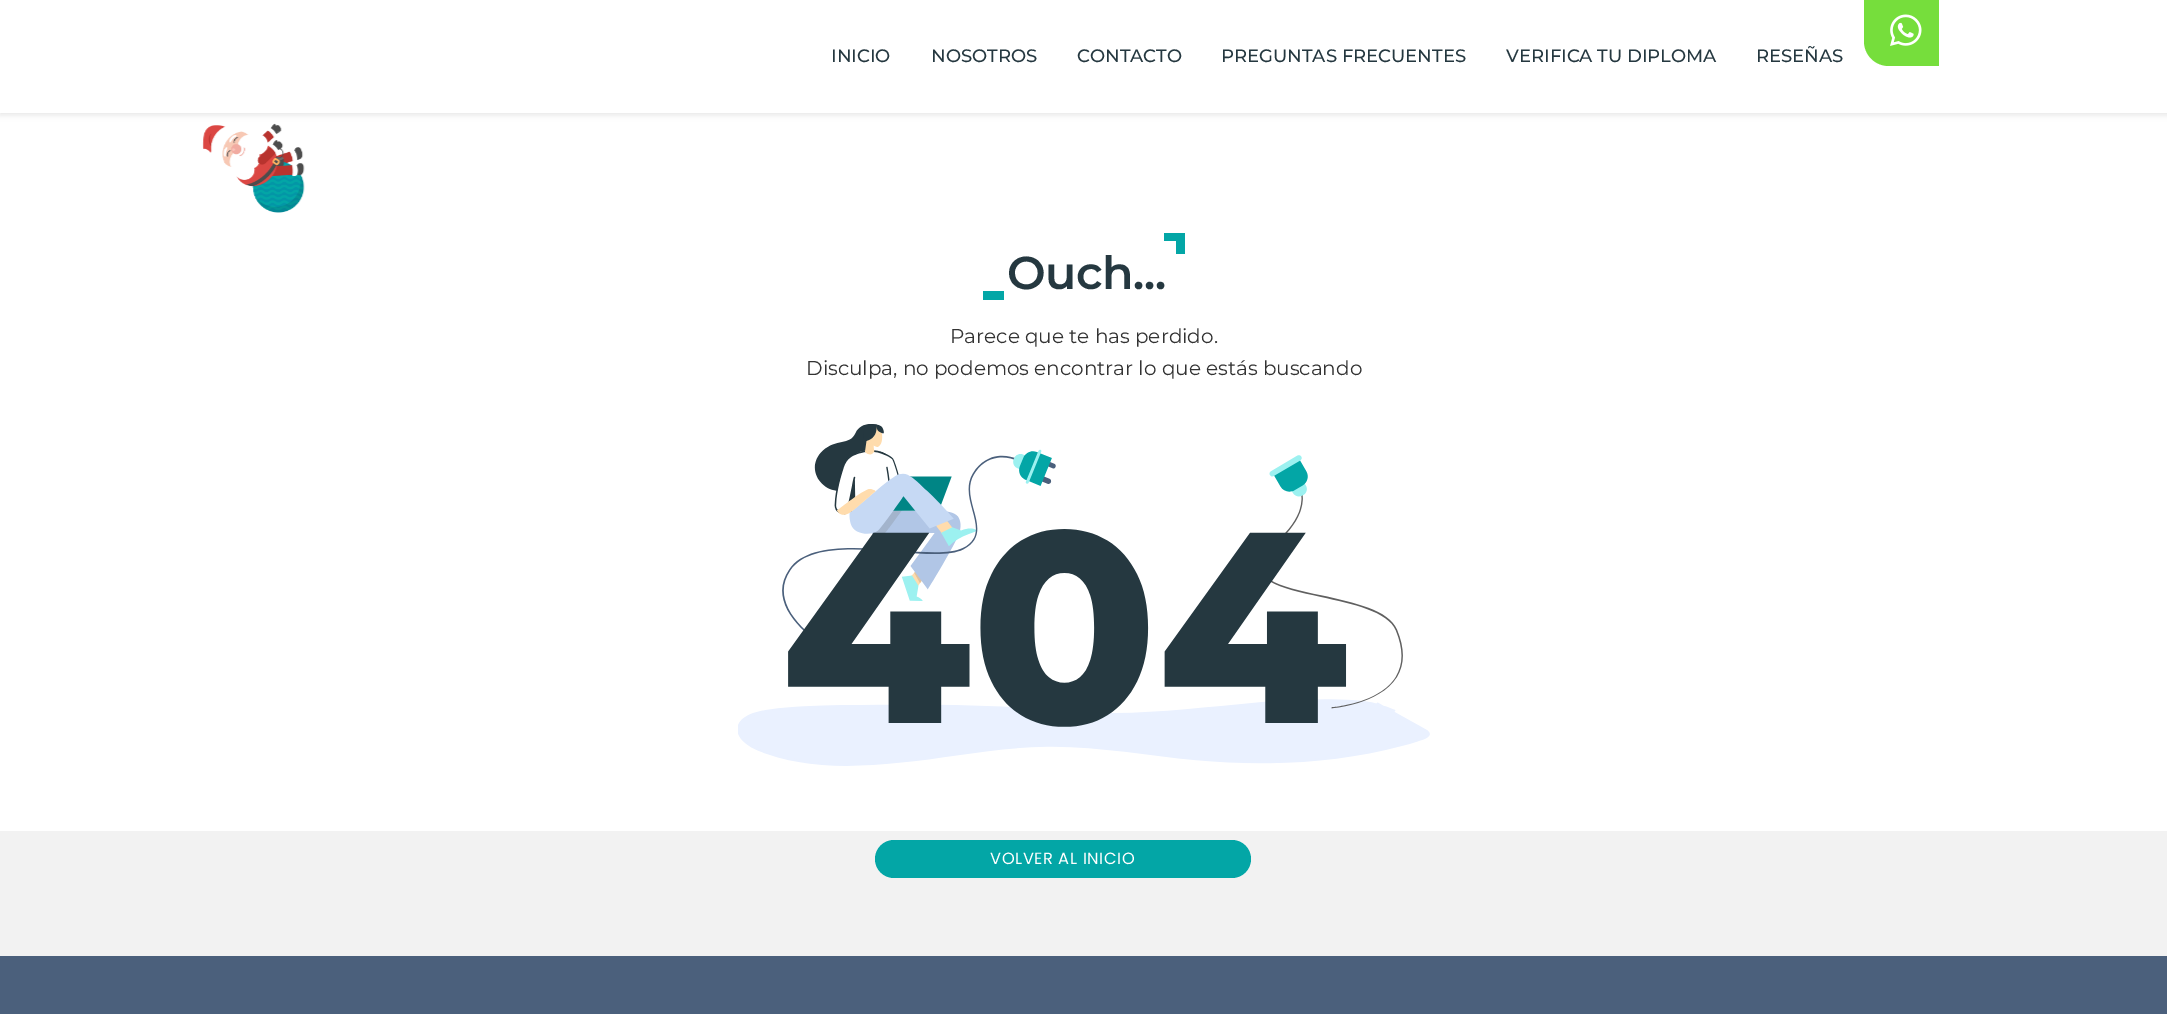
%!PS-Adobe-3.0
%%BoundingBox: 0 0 2167 1014
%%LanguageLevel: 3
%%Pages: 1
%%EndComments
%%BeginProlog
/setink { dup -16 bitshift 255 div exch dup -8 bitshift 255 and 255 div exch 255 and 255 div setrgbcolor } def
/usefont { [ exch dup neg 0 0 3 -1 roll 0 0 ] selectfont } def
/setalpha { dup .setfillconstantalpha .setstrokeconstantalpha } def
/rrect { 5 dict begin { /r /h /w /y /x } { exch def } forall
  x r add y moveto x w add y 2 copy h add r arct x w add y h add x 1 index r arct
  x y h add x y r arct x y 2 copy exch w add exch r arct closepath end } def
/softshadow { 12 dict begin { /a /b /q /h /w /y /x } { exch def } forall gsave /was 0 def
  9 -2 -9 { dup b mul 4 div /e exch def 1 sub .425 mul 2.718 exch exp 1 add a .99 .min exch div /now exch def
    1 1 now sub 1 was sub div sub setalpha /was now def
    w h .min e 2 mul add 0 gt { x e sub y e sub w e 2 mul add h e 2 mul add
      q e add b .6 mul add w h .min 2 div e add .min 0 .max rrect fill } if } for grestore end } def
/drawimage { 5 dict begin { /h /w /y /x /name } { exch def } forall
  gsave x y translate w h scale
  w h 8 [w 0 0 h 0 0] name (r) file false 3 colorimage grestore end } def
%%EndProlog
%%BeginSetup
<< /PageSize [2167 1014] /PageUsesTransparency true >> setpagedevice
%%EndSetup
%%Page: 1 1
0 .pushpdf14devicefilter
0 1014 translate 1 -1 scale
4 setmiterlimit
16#FFFFFF setink
0 0 2167 1014 rectfill
16#000000 setink
0 -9 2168 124 0 3 0.1 softshadow
16#FFFFFF setink
0 0 2167 113 rectfill
/Montserrat-Medium 18 usefont
16#253840 setink
[
    [(INICIO) 831 62]
    [(NOSOTROS) 931 62]
    [(CONTACTO) 1077 62]
    [(PREGUNTAS FRECUENTES) 1221 62]
    [(VERIFICA TU DIPLOMA) 1506 62]
    [(RESEÑAS) 1756 62]
] { aload pop moveto show } forall
16#76DE3C setink
1864 -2 moveto 1939 -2 lineto 1939 66 lineto 1889 66 lineto 1875 66 1864 55 1864 41 curveto closepath fill
(img1.raw) 1890 14 32 32 drawimage
(img2.raw) 202 123 103 90 drawimage
16#03A6A6 setink
1164 233 12 8 rectfill
1176 233 9 21 rectfill
/Montserrat-SemiBold 46 usefont
16#253840 setink
1007 289 moveto -0.5 0 (Ouch...) ashow
16#03A6A6 setink
983 291 21 9 rectfill
/Montserrat-Regular 20 usefont
16#333333 setink
950 343 moveto (Parece que te has perdido.) show
806 375 moveto (Disculpa, no podemos encontrar lo que estás buscando) show
(img3.raw) 738 424 692 342 drawimage
16#F2F2F2 setink
0 831 2167 125 rectfill
16#03A6A6 setink
875 840 376 38 19 rrect fill
/Poppins-Regular 16.25 usefont
16#FFFFFF setink
990 864 moveto 0.6 0 (VOLVER AL INICIO) ashow
16#4B607C setink
0 956 2167 58 rectfill
.poppdf14devicefilter showpage
%%EOF
